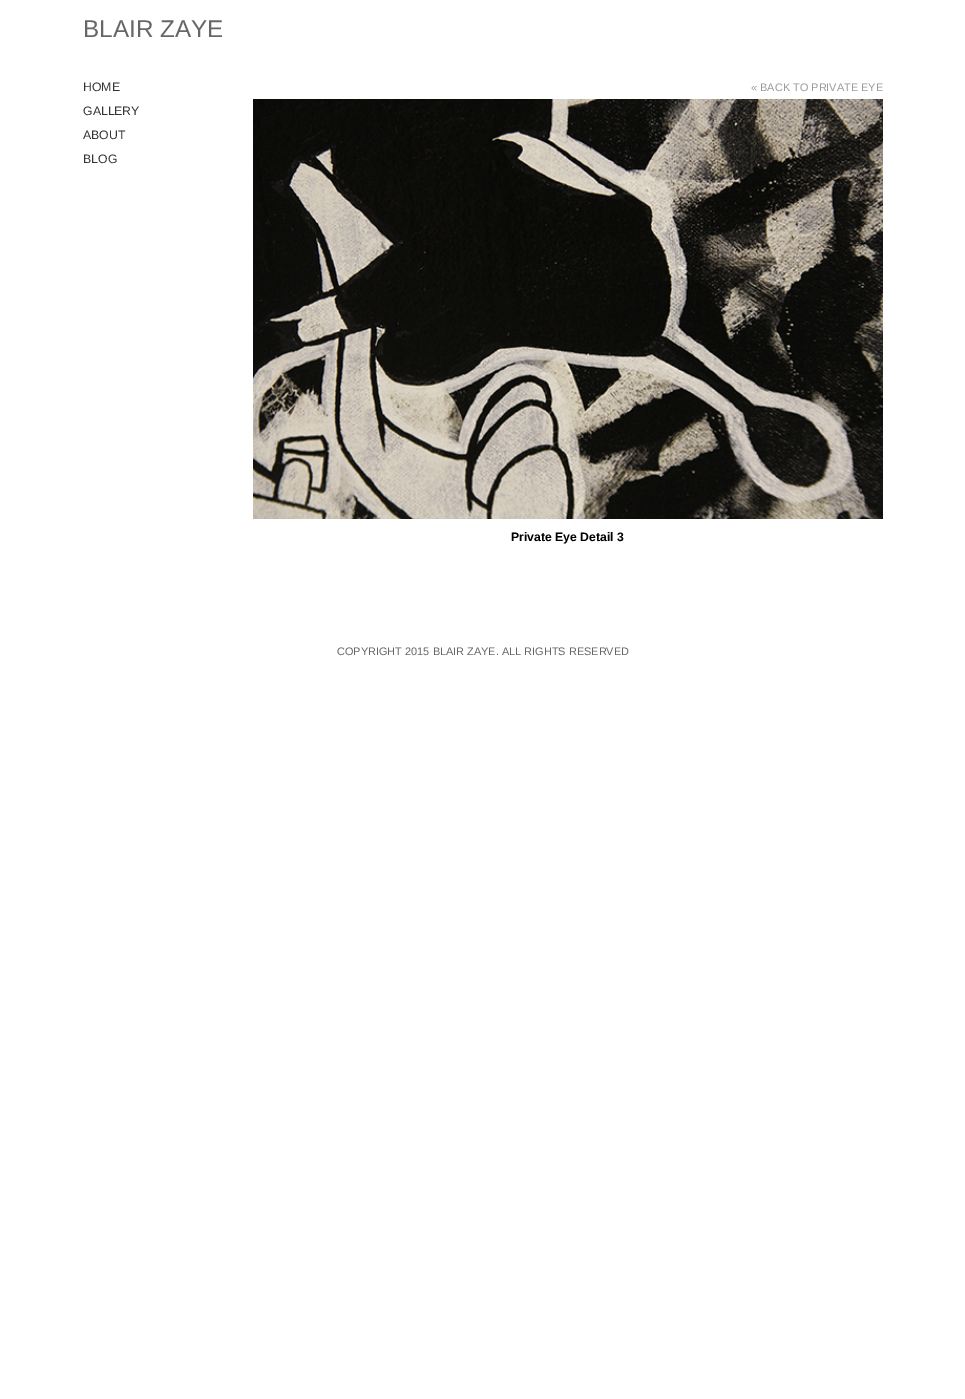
%!PS-Adobe-3.0
%%BoundingBox: 0 0 965 1399
%%LanguageLevel: 3
%%Pages: 1
%%EndComments
%%BeginProlog
/setink { dup -16 bitshift 255 div exch dup -8 bitshift 255 and 255 div exch 255 and 255 div setrgbcolor } def
/usefont { [ exch dup neg 0 0 3 -1 roll 0 0 ] selectfont } def
/drawimage { 5 dict begin { /h /w /y /x /name } { exch def } forall
  gsave x y translate w h scale
  w h 8 [w 0 0 h 0 0] name (r) file false 3 colorimage grestore end } def
%%EndProlog
%%BeginSetup
<< /PageSize [965 1399] >> setpagedevice
%%EndSetup
%%Page: 1 1
0 1399 translate 1 -1 scale
4 setmiterlimit
16#FFFFFF setink
0 0 965 1399 rectfill
/LiberationSans-Regular 24.25 usefont
16#666666 setink
83 37 moveto (BLAIR ZAYE) show
/LiberationSans-Regular 12.25 usefont
16#333333 setink
[
    [(HOME) 83 91]
    [(GALLERY) 83 115]
    [(ABOUT) 83 139]
    [(BLOG) 83 163]
] { aload pop moveto show } forall
/LiberationSans-Regular 10.95 usefont
16#999999 setink
751 91 moveto (« BACK TO PRIVATE EYE) show
(img1.raw) 253 99 630 420 drawimage
/LiberationSans-Bold 12.25 usefont
16#000000 setink
511 541 moveto (Private Eye Detail 3) show
/LiberationSans-Regular 10.95 usefont
16#666666 setink
337 655 moveto (COPYRIGHT 2015 BLAIR ZAYE. ALL RIGHTS RESERVED) show
showpage
%%EOF
